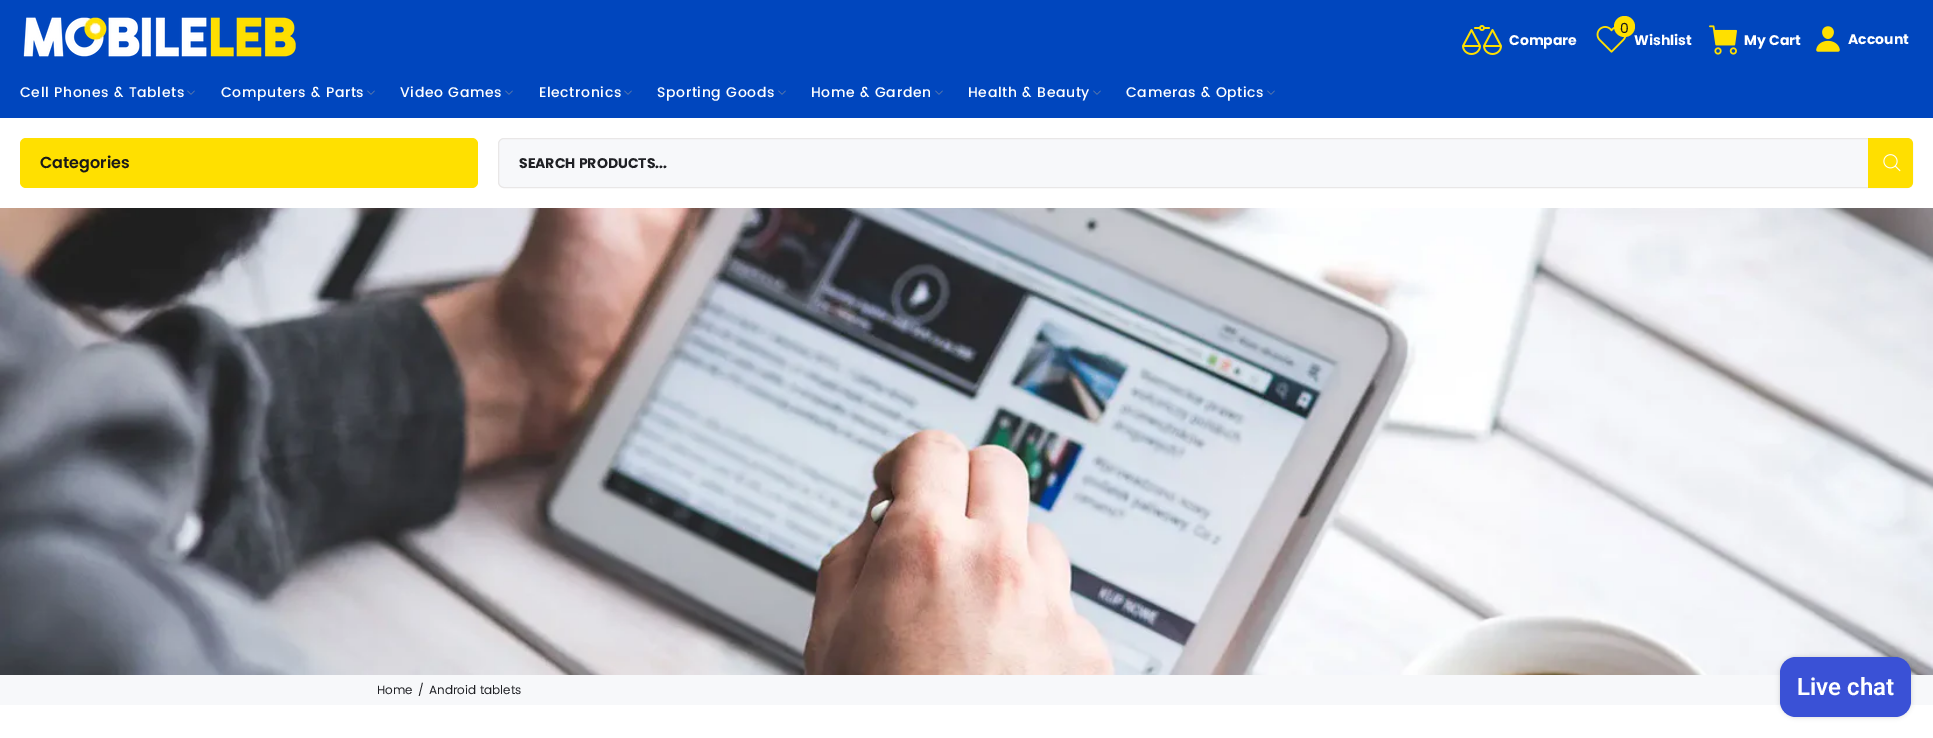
%!PS-Adobe-3.0
%%BoundingBox: 0 0 1933 738
%%LanguageLevel: 3
%%Pages: 1
%%EndComments
%%BeginProlog
/setink { dup -16 bitshift 255 div exch dup -8 bitshift 255 and 255 div exch 255 and 255 div setrgbcolor } def
/usefont { [ exch dup neg 0 0 3 -1 roll 0 0 ] selectfont } def
/setalpha { dup .setfillconstantalpha .setstrokeconstantalpha } def
/disc { newpath 0 360 arc closepath } def
/rrect { 5 dict begin { /r /h /w /y /x } { exch def } forall
  x r add y moveto x w add y 2 copy h add r arct x w add y h add x 1 index r arct
  x y h add x y r arct x y 2 copy exch w add exch r arct closepath end } def
/softshadow { 12 dict begin { /a /b /q /h /w /y /x } { exch def } forall gsave /was 0 def
  9 -2 -9 { dup b mul 4 div /e exch def 1 sub .425 mul 2.718 exch exp 1 add a .99 .min exch div /now exch def
    1 1 now sub 1 was sub div sub setalpha /was now def
    w h .min e 2 mul add 0 gt { x e sub y e sub w e 2 mul add h e 2 mul add
      q e add b .6 mul add w h .min 2 div e add .min 0 .max rrect fill } if } for grestore end } def
/drawimage { 5 dict begin { /h /w /y /x /name } { exch def } forall
  gsave x y translate w h scale
  w h 8 [w 0 0 h 0 0] name (r) file false 3 colorimage grestore end } def
%%EndProlog
%%BeginSetup
<< /PageSize [1933 738] /PageUsesTransparency true >> setpagedevice
%%EndSetup
%%Page: 1 1
0 .pushpdf14devicefilter
0 738 translate 1 -1 scale
4 setmiterlimit
16#FFFFFF setink
0 0 1933 738 rectfill
16#0046BE setink
0 0 1933 118 rectfill
(img1.raw) 23 17 273 40 drawimage
(img2.raw) 1462 25 40 30 drawimage
/Poppins-Bold 14 usefont
16#FFFFFF setink
1509 45 moveto (Compare) show
(img3.raw) 1596 26 31 27 drawimage
1634 45 moveto (Wishlist) show
16#FFE000 setink
1624.5 26.5 10.5 disc fill
/Poppins-Regular 14 usefont
16#191919 setink
1620 33 moveto (0) show
(img4.raw) 1709 25 28 30 drawimage
/Poppins-Bold 14 usefont
16#FFFFFF setink
1744 45 moveto (My Cart) show
(img5.raw) 1816 26 24 26 drawimage
1848 44 moveto (Account) show
/Poppins-Medium 14 usefont
20 97 moveto 0.6 0 (Cell Phones & Tablets) ashow
(img6.raw) 187 90 8 5 drawimage
221 97 moveto 0.6 0 (Computers & Parts) ashow
(img6.raw) 367 90 8 5 drawimage
400 97 moveto 0.6 0 (Video Games) ashow
(img6.raw) 505 90 8 5 drawimage
539 97 moveto 0.6 0 (Electronics) ashow
(img6.raw) 624 90 8 5 drawimage
657 97 moveto 0.6 0 (Sporting Goods) ashow
(img6.raw) 778 90 8 5 drawimage
811 97 moveto 0.6 0 (Home & Garden) ashow
(img6.raw) 935 90 8 5 drawimage
968 97 moveto 0.6 0 (Health & Beauty) ashow
(img6.raw) 1093 90 8 5 drawimage
1126 97 moveto 0.6 0 (Cameras & Optics) ashow
(img6.raw) 1267 90 8 5 drawimage
16#FFE000 setink
20 138 458 50 6 rrect fill
/Poppins-SemiBold 16 usefont
16#191919 setink
40 168 moveto (Categories) show
16#F7F8FA setink
498.5 138.5 1414 49 5.5 rrect gsave fill grestore
16#E9E7E7 setink
stroke
/Poppins-Bold 14 usefont
16#202125 setink
519 168 moveto (SEARCH PRODUCTS...) show
16#FFDF00 setink
1868 138 moveto 1907 138 lineto 1910.5 138 1913 140.5 1913 144 curveto 1913 182 lineto 1913 185.5 1910.5 188 1907 188 curveto 1868 188 lineto closepath fill
(img7.raw) 1883 154 18 18 drawimage
(img8.raw) 0 208 1933 467 drawimage
16#F7F8FA setink
0 675 1933 30 rectfill
/Poppins-Regular 12 usefont
16#202125 setink
[
    [(Home) 377 694]
    [(/) 418 694]
    [(Android tablets) 429 694]
] { aload pop moveto show } forall
16#000000 setink
1780 657 131 60 16 2.5 0.15 softshadow
16#3A51D6 setink
1780 657 131 60 16 rrect fill
/Roboto-SemiBold 24 usefont
16#FFFFFF setink
1797 695 moveto (Live chat) show
.poppdf14devicefilter showpage
%%EOF
